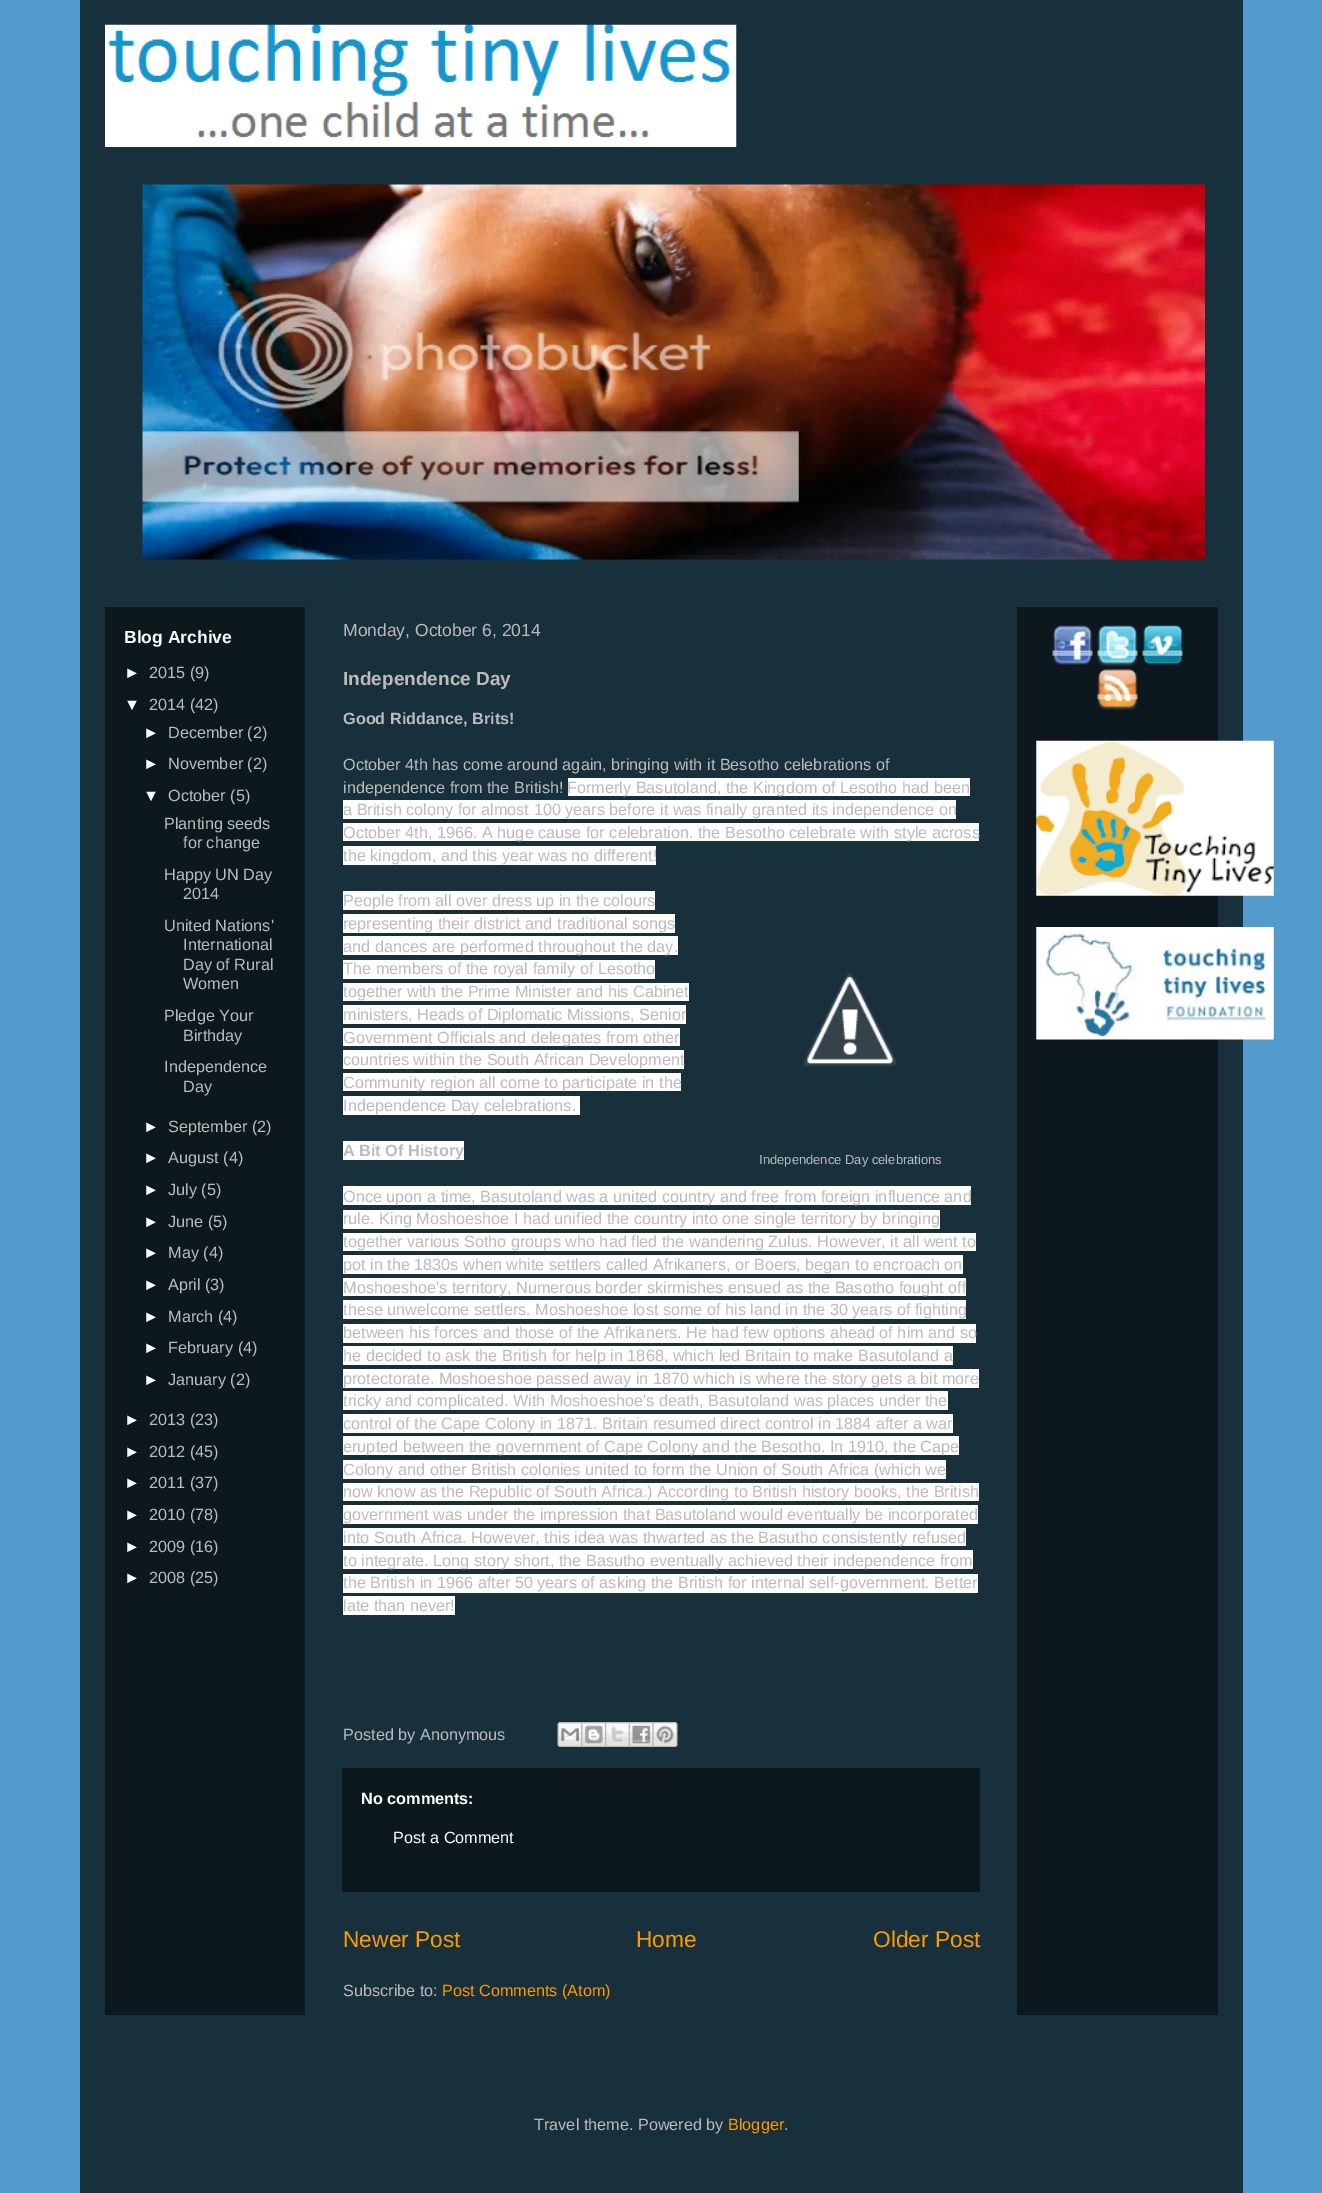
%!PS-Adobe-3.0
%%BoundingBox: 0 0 1322 2193
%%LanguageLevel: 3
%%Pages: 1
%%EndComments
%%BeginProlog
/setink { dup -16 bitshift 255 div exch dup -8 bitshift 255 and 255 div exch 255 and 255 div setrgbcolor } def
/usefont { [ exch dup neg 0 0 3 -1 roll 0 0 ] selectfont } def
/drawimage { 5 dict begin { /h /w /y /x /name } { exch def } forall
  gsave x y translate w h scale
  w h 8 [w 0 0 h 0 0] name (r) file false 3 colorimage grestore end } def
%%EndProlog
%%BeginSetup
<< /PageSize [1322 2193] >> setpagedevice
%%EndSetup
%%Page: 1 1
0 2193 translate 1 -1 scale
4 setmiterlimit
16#539BCD setink
0 0 1322 2193 rectfill
16#182F3C setink
80 0 1163 2193 rectfill
(img1.raw) 105 24 632 123 drawimage
(img2.raw) 142 184 1063 376 drawimage
16#0C181E setink
105 607 200 1408 rectfill
1017 607 201 1408 rectfill
/LiberationSans-Bold 17.5 usefont
16#FFFFFF setink
124 643 moveto (Blog Archive) show
/LiberationSans-Regular 16.25 usefont
124 678 moveto (►) show
16#BBBBBB setink
149 678 moveto (2015 \(9\)) show
16#FFFFFF setink
124 710 moveto (▼) show
16#BBBBBB setink
149 710 moveto (2014 \(42\)) show
16#FFFFFF setink
143 738 moveto (►) show
16#BBBBBB setink
168 738 moveto (December \(2\)) show
16#FFFFFF setink
143 769 moveto (►) show
16#BBBBBB setink
168 769 moveto (November \(2\)) show
16#FFFFFF setink
143 801 moveto (▼) show
16#BBBBBB setink
[
    [(October \(5\)) 168 801]
    [(Planting seeds) 164 829]
    [(for change) 183 848]
    [(Happy UN Day) 164 880]
    [(2014) 183 899]
    [(United Nations') 164 931]
    [(International) 183 950]
    [(Day of Rural) 183 970]
    [(Women) 183 989]
    [(Pledge Your) 164 1021]
    [(Birthday) 183 1041]
    [(Independence) 164 1072]
    [(Day) 183 1092]
] { aload pop moveto show } forall
16#FFFFFF setink
143 1132 moveto (►) show
16#BBBBBB setink
168 1132 moveto (September \(2\)) show
16#FFFFFF setink
143 1163 moveto (►) show
16#BBBBBB setink
168 1163 moveto (August \(4\)) show
16#FFFFFF setink
143 1195 moveto (►) show
16#BBBBBB setink
168 1195 moveto (July \(5\)) show
16#FFFFFF setink
143 1227 moveto (►) show
16#BBBBBB setink
168 1227 moveto (June \(5\)) show
16#FFFFFF setink
143 1258 moveto (►) show
16#BBBBBB setink
168 1258 moveto (May \(4\)) show
16#FFFFFF setink
143 1290 moveto (►) show
16#BBBBBB setink
168 1290 moveto (April \(3\)) show
16#FFFFFF setink
143 1322 moveto (►) show
16#BBBBBB setink
168 1322 moveto (March \(4\)) show
16#FFFFFF setink
143 1353 moveto (►) show
16#BBBBBB setink
168 1353 moveto (February \(4\)) show
16#FFFFFF setink
143 1385 moveto (►) show
16#BBBBBB setink
168 1385 moveto (January \(2\)) show
16#FFFFFF setink
124 1425 moveto (►) show
16#BBBBBB setink
149 1425 moveto (2013 \(23\)) show
16#FFFFFF setink
124 1457 moveto (►) show
16#BBBBBB setink
149 1457 moveto (2012 \(45\)) show
16#FFFFFF setink
124 1488 moveto (►) show
16#BBBBBB setink
149 1488 moveto (2011 \(37\)) show
16#FFFFFF setink
124 1520 moveto (►) show
16#BBBBBB setink
149 1520 moveto (2010 \(78\)) show
16#FFFFFF setink
124 1552 moveto (►) show
16#BBBBBB setink
149 1552 moveto (2009 \(16\)) show
16#FFFFFF setink
124 1583 moveto (►) show
16#BBBBBB setink
149 1583 moveto (2008 \(25\)) show
/LiberationSans-Regular 17.5 usefont
343 636 moveto (Monday, October 6, 2014) show
/LiberationSans-Bold 19 usefont
343 685 moveto (Independence Day) show
/LiberationSans-Bold 16.25 usefont
343 724 moveto (Good Riddance, Brits!) show
/LiberationSans-Regular 16.25 usefont
343 770 moveto (October 4th has come around again, bringing with it Besotho celebrations of) show
343 793 moveto (independence from the British!) show
16#FFFFFF setink
568 778 402 18 rectfill
16#BBBBBB setink
567 793 moveto (Formerly Basutoland, the Kingdom of Lesotho had been) show
16#FFFFFF setink
343 800 613 19 rectfill
16#BBBBBB setink
343 815 moveto (a British colony for almost 100 years before it was finally granted its independence on) show
16#FFFFFF setink
343 823 636 18 rectfill
16#BBBBBB setink
343 838 moveto (October 4th, 1966. A huge cause for celebration. the Besotho celebrate with style across) show
16#FFFFFF setink
343 846 313 19 rectfill
16#BBBBBB setink
343 861 moveto (the kingdom, and this year was no different!) show
16#FFFFFF setink
343 891 312 19 rectfill
16#BBBBBB setink
343 906 moveto (People from all over dress up in the colours) show
16#FFFFFF setink
343 914 332 19 rectfill
16#BBBBBB setink
343 929 moveto (representing their district and traditional songs) show
16#FFFFFF setink
343 936 335 19 rectfill
16#BBBBBB setink
343 952 moveto (and dances are performed throughout the day.) show
16#FFFFFF setink
343 960 312 19 rectfill
16#BBBBBB setink
343 974 moveto (The members of the royal family of Lesotho) show
16#FFFFFF setink
343 983 346 18 rectfill
16#BBBBBB setink
343 997 moveto (together with the Prime Minister and his Cabinet) show
16#FFFFFF setink
343 1005 343 19 rectfill
16#BBBBBB setink
343 1020 moveto (ministers, Heads of Diplomatic Missions, Senior) show
16#FFFFFF setink
343 1028 337 18 rectfill
16#BBBBBB setink
343 1043 moveto (Government Officials and delegates from other) show
16#FFFFFF setink
343 1050 341 19 rectfill
16#BBBBBB setink
343 1065 moveto (countries within the South African Development) show
16#FFFFFF setink
343 1073 338 18 rectfill
16#BBBBBB setink
343 1088 moveto (Community region all come to participate in the) show
16#FFFFFF setink
343 1096 237 19 rectfill
16#BBBBBB setink
343 1111 moveto (Independence Day celebrations.) show
16#FFFFFF setink
343 1141 121 19 rectfill
/LiberationSans-Bold 16.25 usefont
16#BBBBBB setink
343 1156 moveto (A Bit Of History) show
(img3.raw) 803 973 94 93 drawimage
/LiberationSans-Regular 13 usefont
759 1164 moveto (Independence Day celebrations) show
16#FFFFFF setink
343 1186 628 19 rectfill
/LiberationSans-Regular 16.25 usefont
16#BBBBBB setink
343 1202 moveto (Once upon a time, Basutoland was a united country and free from foreign influence and) show
16#FFFFFF setink
343 1210 597 19 rectfill
16#BBBBBB setink
343 1224 moveto (rule. King Moshoeshoe I had unified the country into one single territory by bringing) show
16#FFFFFF setink
343 1233 633 18 rectfill
16#BBBBBB setink
343 1247 moveto (together various Sotho groups who had fled the wandering Zulus. However, it all went to) show
16#FFFFFF setink
343 1255 620 19 rectfill
16#BBBBBB setink
343 1270 moveto (pot in the 1830s when white settlers called Afrikaners, or Boers, began to encroach on) show
16#FFFFFF setink
343 1278 623 18 rectfill
16#BBBBBB setink
343 1293 moveto (Moshoeshoe's territory, Numerous border skirmishes ensued as the Basotho fought off) show
16#FFFFFF setink
343 1300 623 19 rectfill
16#BBBBBB setink
343 1315 moveto (these unwelcome settlers. Moshoeshoe lost some of his land in the 30 years of fighting) show
16#FFFFFF setink
343 1324 633 19 rectfill
16#BBBBBB setink
343 1338 moveto (between his forces and those of the Afrikaners. He had few options ahead of him and so) show
16#FFFFFF setink
343 1346 610 19 rectfill
16#BBBBBB setink
343 1361 moveto (he decided to ask the British for help in 1868, which led Britain to make Basutoland a) show
16#FFFFFF setink
343 1369 636 19 rectfill
16#BBBBBB setink
343 1384 moveto (protectorate. Moshoeshoe passed away in 1870 which is where the story gets a bit more) show
16#FFFFFF setink
343 1391 605 19 rectfill
16#BBBBBB setink
343 1406 moveto (tricky and complicated. With Moshoeshoe's death, Basutoland was places under the) show
16#FFFFFF setink
343 1414 610 19 rectfill
16#BBBBBB setink
343 1429 moveto (control of the Cape Colony in 1871. Britain resumed direct control in 1884 after a war) show
16#FFFFFF setink
343 1436 616 19 rectfill
16#BBBBBB setink
343 1452 moveto (erupted between the government of Cape Colony and the Besotho. In 1910, the Cape) show
16#FFFFFF setink
343 1460 603 19 rectfill
16#BBBBBB setink
343 1475 moveto (Colony and other British colonies united to form the Union of South Africa \(which we) show
16#FFFFFF setink
343 1483 636 18 rectfill
16#BBBBBB setink
343 1497 moveto (now know as the Republic of South Africa.\) According to British history books, the British) show
16#FFFFFF setink
343 1505 635 19 rectfill
16#BBBBBB setink
343 1520 moveto (government was under the impression that Basutoland would eventually be incorporated) show
16#FFFFFF setink
343 1528 623 18 rectfill
16#BBBBBB setink
343 1543 moveto (into South Africa. However, this idea was thwarted as the Basutho consistently refused) show
16#FFFFFF setink
343 1550 630 19 rectfill
16#BBBBBB setink
343 1566 moveto (to integrate. Long story short, the Basutho eventually achieved their independence from) show
16#FFFFFF setink
343 1574 635 19 rectfill
16#BBBBBB setink
343 1588 moveto (the British in 1966 after 50 years of asking the British for internal self-government. Better) show
16#FFFFFF setink
343 1596 112 19 rectfill
16#BBBBBB setink
343 1611 moveto (late than never!) show
343 1740 moveto (Posted by Anonymous) show
(img4.raw) 557 1722 25 25 drawimage
(img5.raw) 581 1722 24 25 drawimage
(img6.raw) 605 1722 24 25 drawimage
(img7.raw) 628 1722 25 25 drawimage
(img8.raw) 652 1722 26 25 drawimage
16#0C181E setink
342 1768 638 124 rectfill
/LiberationSans-Bold 16.25 usefont
16#FFFFFF setink
361 1804 moveto (No comments:) show
/LiberationSans-Regular 16.25 usefont
393 1843 moveto (Post a Comment) show
/LiberationSans-Regular 22.75 usefont
16#FF9900 setink
[
    [(Newer Post) 343 1947]
    [(Home) 636 1947]
    [(Older Post) 873 1947]
] { aload pop moveto show } forall
/LiberationSans-Regular 16.25 usefont
16#BBBBBB setink
343 1996 moveto (Subscribe to:) show
16#FF9900 setink
442 1996 moveto (Post Comments \(Atom\)) show
(img9.raw) 1052 625 41 40 drawimage
(img10.raw) 1097 625 41 41 drawimage
(img11.raw) 1142 625 41 41 drawimage
(img12.raw) 1097 669 41 41 drawimage
(img13.raw) 1036 740 238 156 drawimage
(img14.raw) 1036 927 238 113 drawimage
16#BBBBBB setink
534 2130 moveto (Travel theme. Powered by) show
16#FF9900 setink
728 2130 moveto (Blogger) show
16#BBBBBB setink
784 2130 moveto (.) show
showpage
%%EOF
